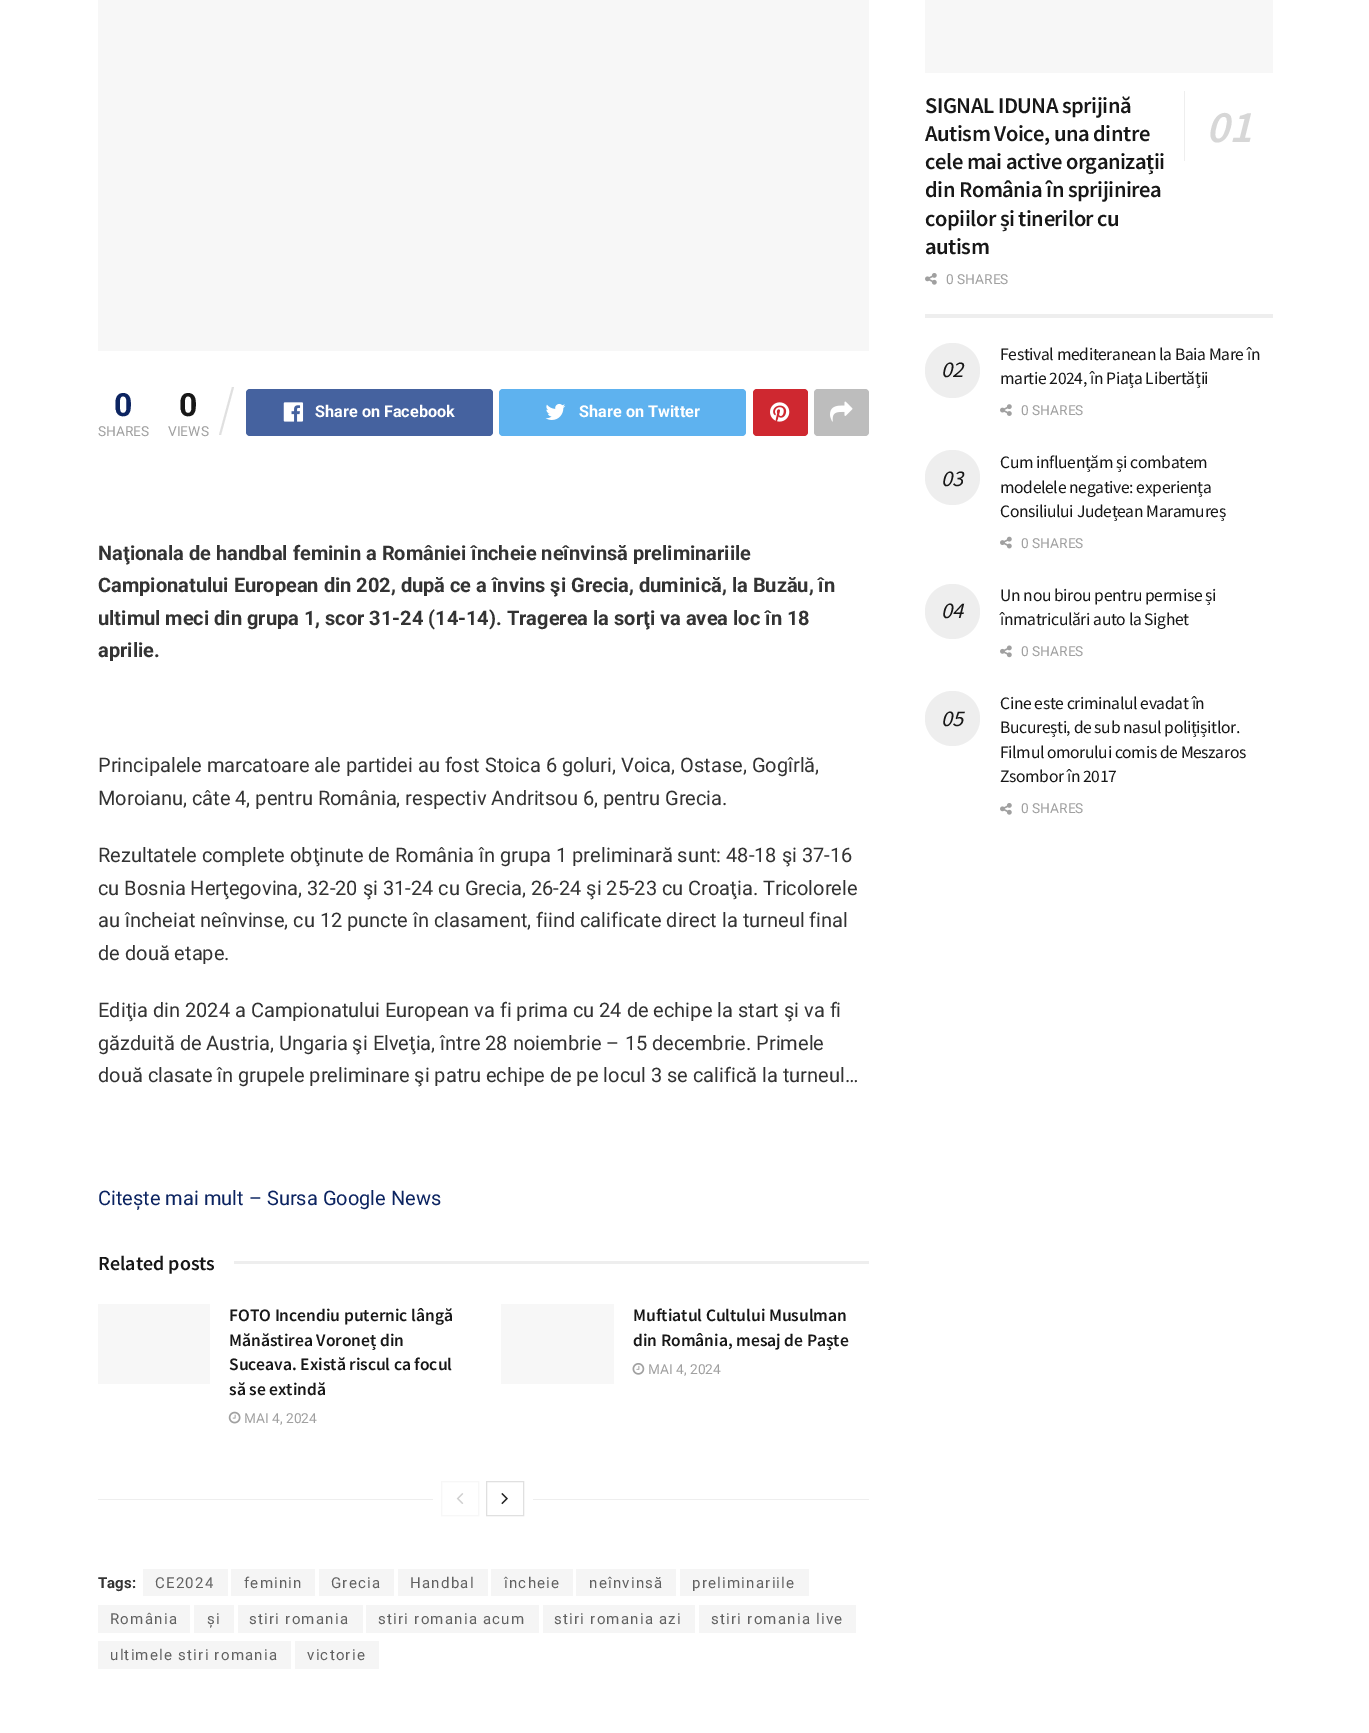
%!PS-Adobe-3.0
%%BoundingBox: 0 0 1369 1733
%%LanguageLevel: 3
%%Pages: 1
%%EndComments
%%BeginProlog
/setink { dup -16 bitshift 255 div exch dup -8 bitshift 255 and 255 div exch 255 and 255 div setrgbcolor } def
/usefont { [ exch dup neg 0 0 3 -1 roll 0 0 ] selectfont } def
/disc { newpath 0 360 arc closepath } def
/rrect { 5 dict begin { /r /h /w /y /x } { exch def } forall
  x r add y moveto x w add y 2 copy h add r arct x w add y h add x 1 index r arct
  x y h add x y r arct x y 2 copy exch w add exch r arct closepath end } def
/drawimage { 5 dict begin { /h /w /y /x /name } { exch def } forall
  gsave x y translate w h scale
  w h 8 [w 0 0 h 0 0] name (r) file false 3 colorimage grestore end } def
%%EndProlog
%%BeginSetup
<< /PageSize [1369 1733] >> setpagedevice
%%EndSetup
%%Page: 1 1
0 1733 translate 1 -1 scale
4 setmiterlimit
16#FFFFFF setink
0 0 1369 1733 rectfill
16#F7F7F7 setink
98 0 771 351 rectfill
/Roboto-Bold 32 usefont
16#0C2461 setink
114 416 moveto (0) show
/Roboto-Regular 13.75 usefont
16#A0A0A0 setink
98 436 moveto (SHARES) show
/Roboto-Bold 32 usefont
16#171717 setink
179 416 moveto (0) show
16#E0E0E0 setink
232 387 moveto 234 387 lineto 221 435 lineto 219 435 lineto closepath fill
/Roboto-Regular 13.75 usefont
16#A0A0A0 setink
168 436 moveto (VIEWS) show
16#45629F setink
246 389 247 47 4 rrect fill
(img1.raw) 283 402 21 20 drawimage
/Roboto-Bold 16.25 usefont
16#FFFFFF setink
315 417 moveto (Share on Facebook) show
16#5EB2EF setink
499 389 247 47 4 rrect fill
(img2.raw) 545 403 21 17 drawimage
16#FFFFFF setink
579 417 moveto (Share on Twitter) show
16#CF2830 setink
753 389 55 47 4 rrect fill
(img3.raw) 770 402 20 20 drawimage
16#BDBDBD setink
814 389 55 47 4 rrect fill
(img4.raw) 830 401 23 21 drawimage
/Roboto-Bold 20 usefont
16#333333 setink
[
    [(Naţionala de handbal feminin a României încheie neînvinsă preliminariile) 98 560]
    [(Campionatului European din 202, după ce a învins şi Grecia, duminică, la Buzău, în) 98 592]
    [(ultimul meci din grupa 1, scor 31-24 \(14-14\). Tragerea la sorţi va avea loc în 18) 98 625]
    [(aprilie.) 98 657]
] { aload pop moveto show } forall
/Roboto-Regular 20 usefont
[
    [(Principalele marcatoare ale partidei au fost Stoica 6 goluri, Voica, Ostase, Gogîrlă,) 98 772]
    [(Moroianu, câte 4, pentru România, respectiv Andritsou 6, pentru Grecia.) 98 805]
    [(Rezultatele complete obţinute de România în grupa 1 preliminară sunt: 48-18 şi 37-16) 98 862]
    [(cu Bosnia Herţegovina, 32-20 şi 31-24 cu Grecia, 26-24 şi 25-23 cu Croaţia. Tricolorele) 98 895]
    [(au încheiat neînvinse, cu 12 puncte în clasament, fiind calificate direct la turneul final) 98 927]
    [(de două etape.) 98 960]
    [(Ediţia din 2024 a Campionatului European va fi prima cu 24 de echipe la start şi va fi) 98 1017]
    [(găzduită de Austria, Ungaria şi Elveţia, între 28 noiembrie – 15 decembrie. Primele) 98 1050]
    [(două clasate în grupele preliminare şi patru echipe de pe locul 3 se califică la turneul…) 98 1082]
] { aload pop moveto show } forall
16#0C2461 setink
98 1205 moveto (Citește mai mult – Sursa Google News) show
/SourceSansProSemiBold-SemiBold 20 usefont
16#171717 setink
98 1270 moveto (Related posts) show
16#EEEEEE setink
234 1261 635 3 rectfill
16#F7F7F7 setink
98 1304 112 80 rectfill
/SourceSansProSemiBold-SemiBold 17.5 usefont
16#171717 setink
[
    [(FOTO Incendiu puternic lângă) 229 1321]
    [(Mănăstirea Voroneț din) 229 1346]
    [(Suceava. Există riscul ca focul) 229 1370]
    [(să se extindă) 229 1395]
] { aload pop moveto show } forall
(img5.raw) 228 1411 13 13 drawimage
/Roboto-Regular 13.75 usefont
16#A0A0A0 setink
244 1423 moveto (MAI 4, 2024) show
16#F7F7F7 setink
501 1304 113 80 rectfill
/SourceSansProSemiBold-SemiBold 17.5 usefont
16#171717 setink
633 1321 moveto (Muftiatul Cultului Musulman) show
633 1346 moveto (din România, mesaj de Paște) show
(img6.raw) 632 1363 13 12 drawimage
/Roboto-Regular 13.75 usefont
16#A0A0A0 setink
648 1374 moveto (MAI 4, 2024) show
16#EEEEEE setink
98 1499 335 1 rectfill
16#F7F7F7 setink
441.5 1481.5 37 34 rectstroke
(img7.raw) 456 1493 8 11 drawimage
16#E0E0E0 setink
486.5 1481.5 37 34 rectstroke
(img8.raw) 501 1493 7 12 drawimage
16#EEEEEE setink
533 1499 336 1 rectfill
/Roboto-Bold 15 usefont
16#333333 setink
98 1588 moveto (Tags:) show
16#F5F5F5 setink
143 1569 85 27 rectfill
/Roboto-Regular 15 usefont
16#616161 setink
155 1588 moveto 1.25 0 (CE2024) ashow
16#F5F5F5 setink
231 1569 84 27 rectfill
16#616161 setink
244 1588 moveto 1.25 0 (feminin) ashow
16#F5F5F5 setink
319 1569 75 27 rectfill
16#616161 setink
331 1588 moveto 1.25 0 (Grecia) ashow
16#F5F5F5 setink
398 1569 90 27 rectfill
16#616161 setink
410 1588 moveto 1.25 0 (Handbal) ashow
16#F5F5F5 setink
491 1569 82 27 rectfill
16#616161 setink
504 1588 moveto 1.25 0 (încheie) ashow
16#F5F5F5 setink
576 1569 100 27 rectfill
16#616161 setink
589 1588 moveto 1.25 0 (neînvinsă) ashow
16#F5F5F5 setink
680 1569 129 27 rectfill
16#616161 setink
692 1588 moveto 1.25 0 (preliminariile) ashow
16#F5F5F5 setink
98 1605 92 28 rectfill
16#616161 setink
110 1624 moveto 1.25 0 (România) ashow
16#F5F5F5 setink
194 1605 40 28 rectfill
16#616161 setink
207 1624 moveto 1.25 0 (și) ashow
16#F5F5F5 setink
238 1605 125 28 rectfill
16#616161 setink
249 1624 moveto 1.25 0 (stiri romania) ashow
16#F5F5F5 setink
366 1605 173 28 rectfill
16#616161 setink
378 1624 moveto 1.25 0 (stiri romania acum) ashow
16#F5F5F5 setink
543 1605 152 28 rectfill
16#616161 setink
554 1624 moveto 1.25 0 (stiri romania azi) ashow
16#F5F5F5 setink
699 1605 157 28 rectfill
16#616161 setink
711 1624 moveto 1.25 0 (stiri romania live) ashow
16#F5F5F5 setink
98 1641 193 28 rectfill
16#616161 setink
110 1660 moveto 1.25 0 (ultimele stiri romania) ashow
16#F5F5F5 setink
295 1641 84 28 rectfill
16#616161 setink
307 1660 moveto 1.25 0 (victorie) ashow
16#EEEEEE setink
925 314 348 4 rectfill
16#F7F7F7 setink
925 0 348 73 rectfill
/SourceSansProSemiBold-SemiBold 22.5 usefont
16#171717 setink
925 113 moveto -0.45 0 (SIGNAL IDUNA sprijină) ashow
925 141 moveto -0.45 0 (Autism Voice, una dintre) ashow
16#EEEEEE setink
1184 91 1 70 rectfill
/SourceSansProSemiBold-SemiBoldItalic 45 usefont
16#D7D7D7 setink
1206 142 moveto -0.45 0 (01) ashow
/SourceSansProSemiBold-SemiBold 22.5 usefont
16#171717 setink
925 169 moveto -0.45 0 (cele mai active organizații) ashow
925 197 moveto -0.45 0 (din România în sprijinirea) ashow
925 226 moveto -0.45 0 (copiilor și tinerilor cu) ashow
925 254 moveto -0.45 0 (autism) ashow
(img9.raw) 925 273 12 12 drawimage
/Roboto-Regular 13.75 usefont
16#A0A0A0 setink
946 284 moveto (0 SHARES) show
/SourceSansPro-Regular 17.5 usefont
16#171717 setink
1000 360 moveto -0.35 0 (Festival mediteranean la Baia Mare în) ashow
16#EEEEEE setink
952.5 370.5 27.5 disc fill
/SourceSansPro-Italic 22.5 usefont
16#171717 setink
941 377 moveto -0.35 0 (02) ashow
/SourceSansPro-Regular 17.5 usefont
1000 384 moveto -0.35 0 (martie 2024, în Piața Libertății) ashow
(img10.raw) 1000 404 12 12 drawimage
/Roboto-Regular 13.75 usefont
16#A0A0A0 setink
1021 415 moveto (0 SHARES) show
/SourceSansPro-Regular 17.5 usefont
16#171717 setink
1000 468 moveto -0.35 0 (Cum influențăm și combatem) ashow
16#EEEEEE setink
952.5 477.5 27.5 disc fill
/SourceSansPro-Italic 22.5 usefont
16#171717 setink
941 486 moveto -0.35 0 (03) ashow
/SourceSansPro-Regular 17.5 usefont
1000 493 moveto -0.35 0 (modelele negative: experiența) ashow
1000 517 moveto -0.35 0 (Consiliului Județean Maramureș) ashow
(img11.raw) 1000 536 12 13 drawimage
/Roboto-Regular 13.75 usefont
16#A0A0A0 setink
1021 548 moveto (0 SHARES) show
/SourceSansPro-Regular 17.5 usefont
16#171717 setink
1000 601 moveto -0.35 0 (Un nou birou pentru permise și) ashow
16#EEEEEE setink
952.5 611.5 27.5 disc fill
/SourceSansPro-Italic 22.5 usefont
16#171717 setink
941 618 moveto -0.35 0 (04) ashow
/SourceSansPro-Regular 17.5 usefont
1000 625 moveto -0.35 0 (înmatriculări auto la Sighet) ashow
(img12.raw) 1000 645 12 13 drawimage
/Roboto-Regular 13.75 usefont
16#A0A0A0 setink
1021 656 moveto (0 SHARES) show
/SourceSansPro-Regular 17.5 usefont
16#171717 setink
1000 709 moveto -0.35 0 (Cine este criminalul evadat în) ashow
16#EEEEEE setink
952.5 718.5 27.5 disc fill
/SourceSansPro-Italic 22.5 usefont
16#171717 setink
941 726 moveto -0.35 0 (05) ashow
/SourceSansPro-Regular 17.5 usefont
1000 733 moveto -0.35 0 (București, de sub nasul polițișitlor.) ashow
1000 758 moveto -0.35 0 (Filmul omorului comis de Meszaros) ashow
1000 782 moveto -0.35 0 (Zsombor în 2017) ashow
(img9.raw) 1000 803 12 12 drawimage
/Roboto-Regular 13.75 usefont
16#A0A0A0 setink
1021 813 moveto (0 SHARES) show
showpage
%%EOF
